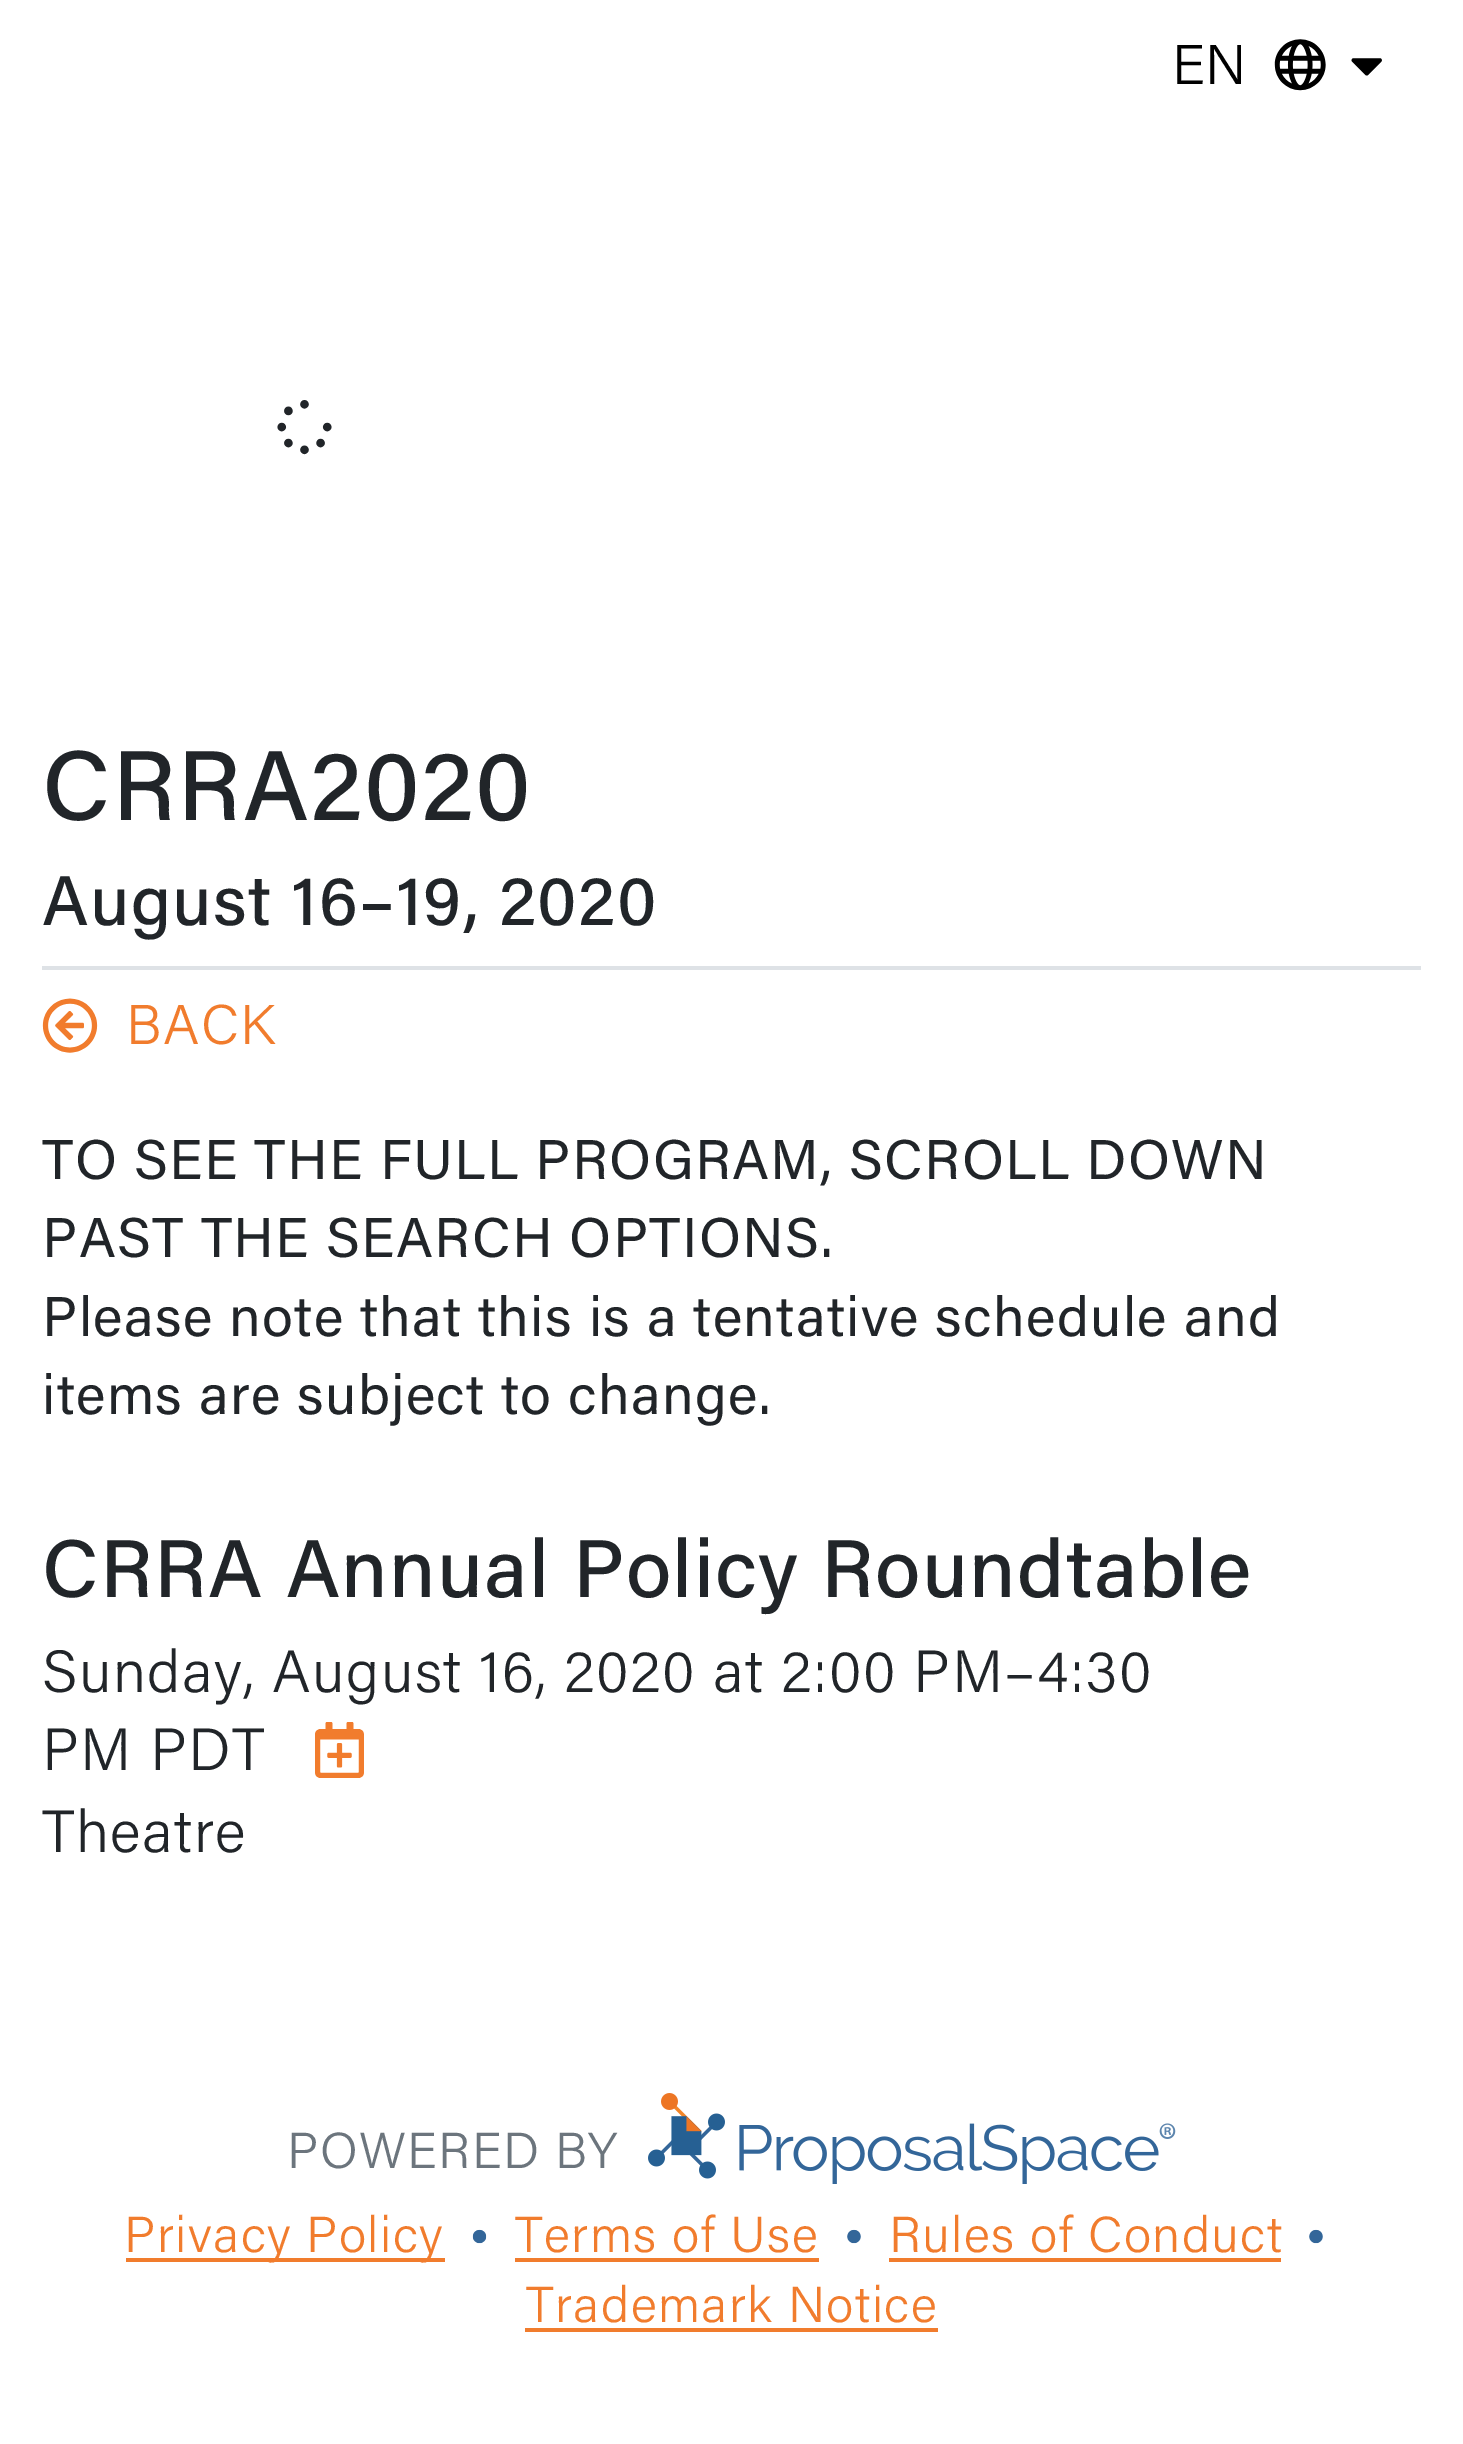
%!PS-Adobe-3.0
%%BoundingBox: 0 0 1463 2444
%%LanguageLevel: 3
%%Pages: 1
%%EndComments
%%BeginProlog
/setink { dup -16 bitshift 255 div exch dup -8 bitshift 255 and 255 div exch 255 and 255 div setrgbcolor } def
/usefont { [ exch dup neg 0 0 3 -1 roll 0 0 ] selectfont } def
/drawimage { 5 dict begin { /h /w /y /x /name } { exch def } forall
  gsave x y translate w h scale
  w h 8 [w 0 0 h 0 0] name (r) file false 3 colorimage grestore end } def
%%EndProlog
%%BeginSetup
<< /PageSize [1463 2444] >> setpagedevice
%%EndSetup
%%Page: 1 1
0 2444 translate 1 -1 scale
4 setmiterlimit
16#FFFFFF setink
0 0 1463 2444 rectfill
/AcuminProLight-Light 56 usefont
16#000000 setink
1172 84 moveto (EN) show
(img1.raw) 1274 39 52 52 drawimage
(img2.raw) 1351 58 31 18 drawimage
16#DEE2E6 setink
42 966 1379 4 rectfill
(img3.raw) 277 400 55 55 drawimage
/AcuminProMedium-Medium 99 usefont
16#212529 setink
42 820 moveto 1.4 0 (CRRA2020) ashow
/AcuminProMedium-Medium 70 usefont
42 925 moveto 1.4 0 (August 16–19, 2020) ashow
(img4.raw) 42 998 56 55 drawimage
/AcuminProLight-Light 56 usefont
16#F17C2D setink
126 1044 moveto 1.4 0 (BACK) ashow
/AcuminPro-Regular 56 usefont
16#212529 setink
42 1179 moveto 1.4 0 (TO SEE THE FULL PROGRAM, SCROLL DOWN) ashow
42 1257 moveto 1.4 0 (PAST THE SEARCH OPTIONS.) ashow
42 1336 moveto 1.4 0 (Please note that this is a tentative schedule and) ashow
42 1414 moveto 1.4 0 (items are subject to change.) ashow
/AcuminProMedium-Medium 81.6 usefont
42 1597 moveto 1.4 0 (CRRA Annual Policy Roundtable) ashow
/AcuminProLight-Light 59.5 usefont
42 1692 moveto 1.4 0 (Sunday, August 16, 2020 at 2:00 PM–4:30) ashow
42 1770 moveto 1.4 0 (PM PDT) ashow
(img5.raw) 315 1722 49 56 drawimage
42 1852 moveto 1.4 0 (Theatre) ashow
/AcuminProLight-Light 50.5 usefont
16#6C757D setink
287 2168 moveto 1.4 0 (POWERED BY) ashow
(img6.raw) 648 2093 528 91 drawimage
16#F17C2D setink
126 2258 319 4 rectfill
124 2252 moveto 1.4 0 (Privacy Policy) ashow
(img7.raw) 472 2229 15 15 drawimage
515 2252 moveto 1.4 0 (Terms of Use) ashow
515 2258 304 4 rectfill
(img8.raw) 847 2229 14 15 drawimage
889 2252 moveto 1.4 0 (Rules of Conduct) ashow
889 2258 392 4 rectfill
(img8.raw) 1309 2229 14 15 drawimage
526 2322 moveto 1.4 0 (Trademark Notice) ashow
525 2328 413 4 rectfill
showpage
%%EOF
